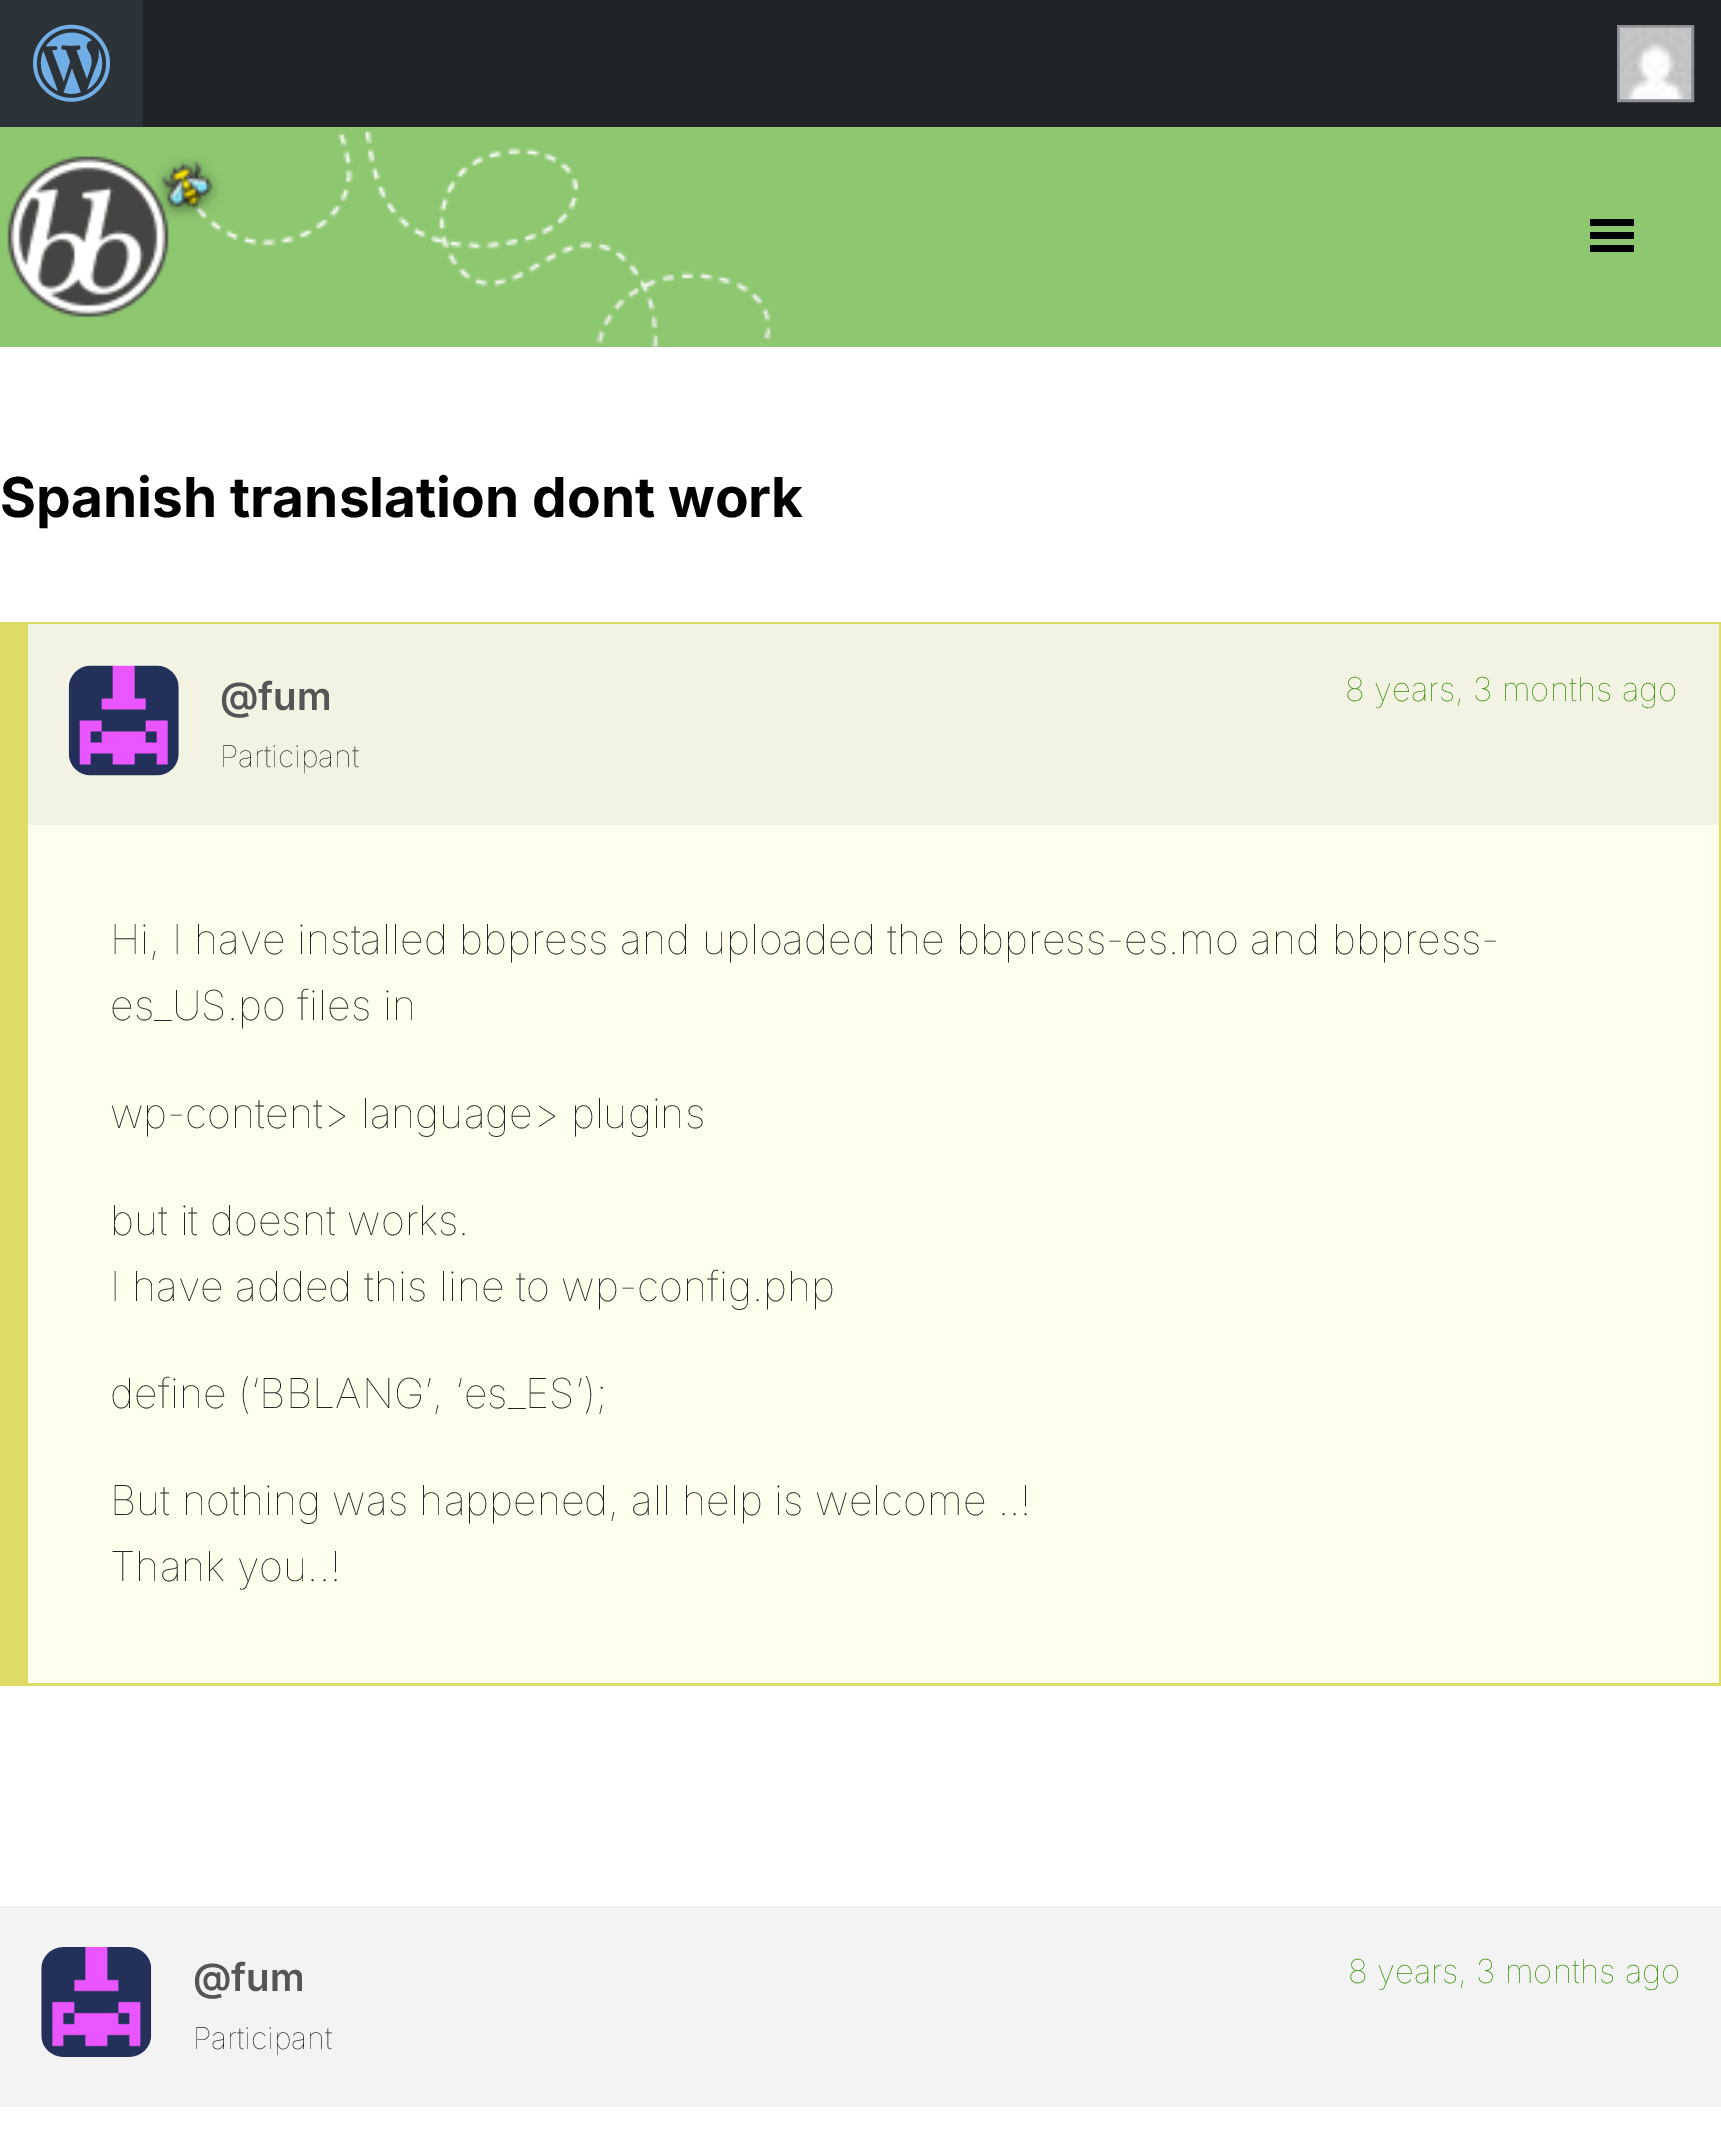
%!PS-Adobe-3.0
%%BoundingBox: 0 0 1721 2146
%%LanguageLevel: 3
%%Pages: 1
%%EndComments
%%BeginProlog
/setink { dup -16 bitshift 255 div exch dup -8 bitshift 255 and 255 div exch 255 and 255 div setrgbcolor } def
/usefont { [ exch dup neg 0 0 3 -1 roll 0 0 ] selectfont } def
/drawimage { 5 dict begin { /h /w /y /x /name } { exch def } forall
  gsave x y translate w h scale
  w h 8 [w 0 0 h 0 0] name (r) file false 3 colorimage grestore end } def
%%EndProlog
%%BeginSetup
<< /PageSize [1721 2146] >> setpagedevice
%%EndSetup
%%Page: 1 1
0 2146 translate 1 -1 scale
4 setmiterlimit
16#FFFFFF setink
0 0 1721 2146 rectfill
16#1D2327 setink
143 0 1578 127 rectfill
16#2C3338 setink
0 0 143 127 rectfill
(img1.raw) 33 24 77 78 drawimage
16#8C8F94 setink
3 setlinewidth
1618.5 26.5 74 74 rectstroke
(img2.raw) 1619 27 73 73 drawimage
16#8DC770 setink
0 127 1721 220 rectfill
(img3.raw) 156 131 615 216 drawimage
(img4.raw) 7 156 172 162 drawimage
16#000000 setink
1634 226 moveto 1634 219 lineto 1590 219 lineto 1590 226 lineto closepath 1634 239 moveto 1634 232 lineto 1590 232 lineto 1590 239 lineto closepath 1634 252 moveto 1634 245 lineto 1590 245 lineto 1590 252 lineto closepath fill
/Inter-Bold 55 usefont
0 517 moveto (Spanish translation dont work) show
[
    [28 622 1693 2 16#DDDD66]
    [1719 622 2 1064 16#DDDD66]
    [28 1683 1693 3 16#DDDD66]
    [0 622 28 1064 16#DDDD66]
    [28 825 1691 858 16#FFFFEE]
    [28 624 1691 201 16#F3F3E3]
] { aload pop setink rectfill } forall
(img5.raw) 68 665 111 111 drawimage
/Inter-SemiBold 38.5 usefont
16#555555 setink
220 710 moveto (@fum) show
/Inter-Thin 30.25 usefont
16#222222 setink
220 767 moveto (Participant) show
/Inter-Thin 33 usefont
16#328C00 setink
1345 701 moveto (8 years, 3 months ago) show
/Inter-Thin 41.25 usefont
16#222222 setink
[
    [(Hi, I have installed bbpress and uploaded the bbpress-es.mo and bbpress-) 110 954]
    [(es_US.po files in) 110 1020]
    [(wp-content> language> plugins) 110 1128]
    [(but it doesnt works.) 110 1235]
    [(I have added this line to wp-config.php) 110 1301]
    [(define \(‘BBLANG’, ‘es_ES’\);) 110 1408]
    [(But nothing was happened, all help is welcome ..!) 110 1515]
    [(Thank you..!) 110 1581]
] { aload pop moveto show } forall
16#F3F3F3 setink
0 1906 1721 201 rectfill
(img6.raw) 41 1947 111 110 drawimage
/Inter-SemiBold 38.5 usefont
16#555555 setink
193 1991 moveto (@fum) show
/Inter-Thin 30.25 usefont
16#222222 setink
193 2049 moveto (Participant) show
/Inter-Thin 33 usefont
16#328C00 setink
1348 1983 moveto (8 years, 3 months ago) show
showpage
%%EOF
